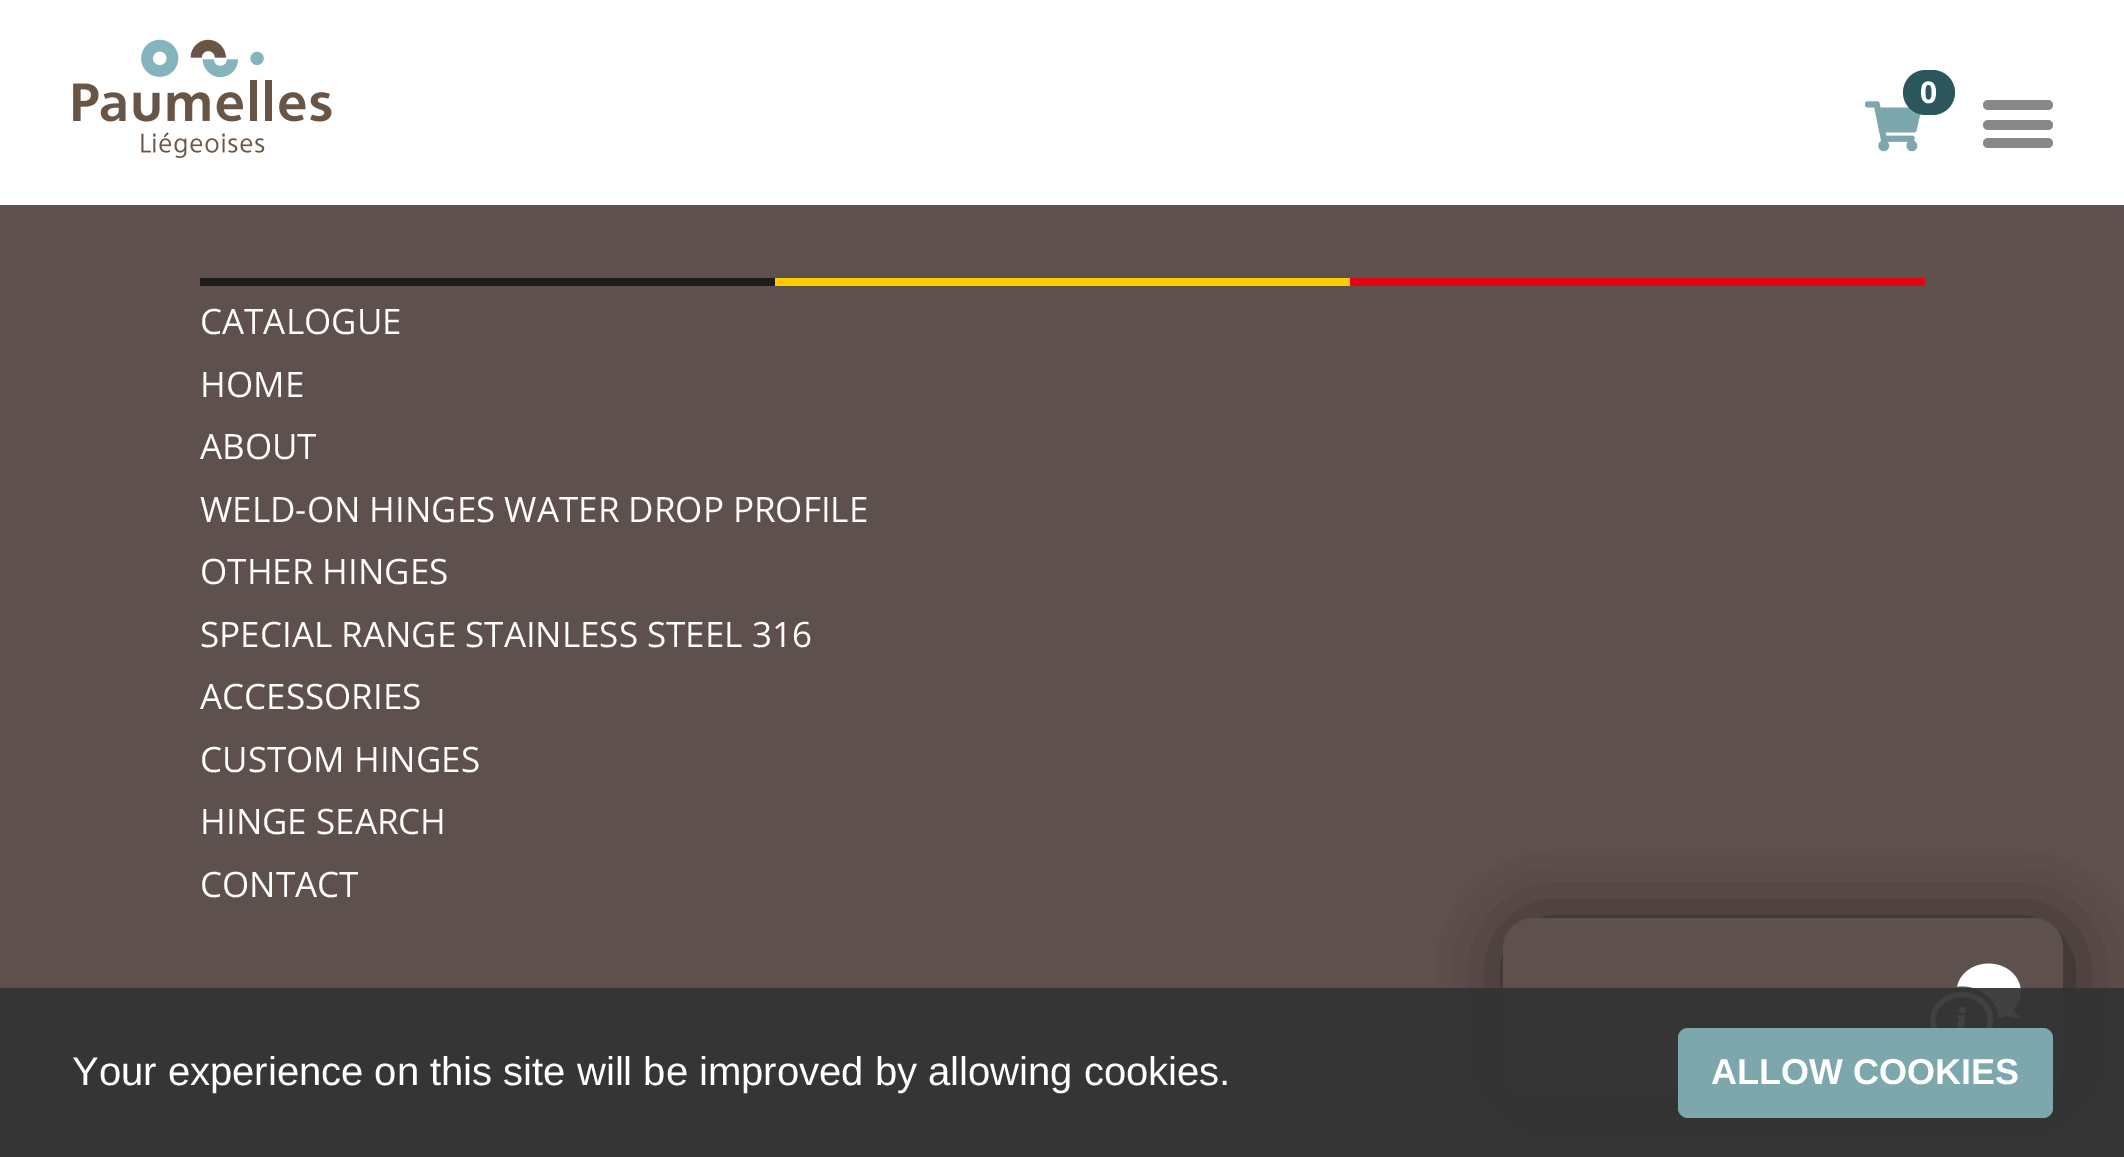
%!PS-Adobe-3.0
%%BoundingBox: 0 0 2124 1157
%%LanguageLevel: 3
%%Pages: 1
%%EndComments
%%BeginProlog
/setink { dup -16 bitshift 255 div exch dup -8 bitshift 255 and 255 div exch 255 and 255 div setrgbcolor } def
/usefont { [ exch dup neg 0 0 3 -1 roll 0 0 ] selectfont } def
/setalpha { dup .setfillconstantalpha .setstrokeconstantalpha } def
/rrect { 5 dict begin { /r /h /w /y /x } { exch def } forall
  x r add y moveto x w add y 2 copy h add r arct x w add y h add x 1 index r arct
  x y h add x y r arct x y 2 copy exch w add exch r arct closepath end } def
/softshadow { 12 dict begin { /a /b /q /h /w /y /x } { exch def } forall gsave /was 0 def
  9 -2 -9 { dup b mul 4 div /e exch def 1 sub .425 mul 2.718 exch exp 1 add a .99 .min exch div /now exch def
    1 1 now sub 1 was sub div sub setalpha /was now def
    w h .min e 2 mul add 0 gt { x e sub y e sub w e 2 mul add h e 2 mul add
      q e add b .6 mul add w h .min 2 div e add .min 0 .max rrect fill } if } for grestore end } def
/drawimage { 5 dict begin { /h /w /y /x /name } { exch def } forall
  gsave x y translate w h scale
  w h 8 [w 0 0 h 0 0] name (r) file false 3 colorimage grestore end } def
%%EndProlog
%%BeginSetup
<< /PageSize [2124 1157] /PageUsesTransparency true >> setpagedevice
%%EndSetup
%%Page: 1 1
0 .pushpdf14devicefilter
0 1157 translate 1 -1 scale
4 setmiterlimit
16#5E504D setink
0 0 2124 1157 rectfill
16#FFFFFF setink
0 0 2124 205 rectfill
(img1.raw) 73 39 259 119 drawimage
(img2.raw) 1865 101 56 51 drawimage
16#2A565C setink
1903 70 52 45 22.5 rrect fill
/OpenSans-Bold 30 usefont
16#FFFFFF setink
1920 103 moveto (0) show
16#888888 setink
1983 100 70 10 5 rrect fill
1983 120 70 10 5 rrect fill
1983 138 70 10 5 rrect fill
16#000000 setink
1508 923 560 177 30 32.5 0.55 softshadow
16#5E504C setink
1503 918 560 177 30 rrect fill
(img3.raw) 1930 963 91 65 drawimage
[
    [200 278 575 8 16#1D1D1B]
    [775 278 575 8 16#FFCC00]
    [1350 278 575 8 16#E30512]
] { aload pop setink rectfill } forall
/OpenSans-Regular 35 usefont
16#FFFFFF setink
[
    [(CATALOGUE) 200 334]
    [(HOME) 200 397]
    [(ABOUT) 200 459]
    [(WELD-ON HINGES WATER DROP PROFILE) 200 522]
    [(OTHER HINGES) 200 584]
    [(SPECIAL RANGE STAINLESS STEEL 316) 200 647]
    [(ACCESSORIES) 200 709]
    [(CUSTOM HINGES) 200 772]
    [(HINGE SEARCH) 200 834]
    [(CONTACT) 200 897]
] { aload pop moveto show } forall
0.93 setalpha
16#333333 setink
0 988 2124 169 rectfill
/LiberationSans-Regular 40 usefont
1 setalpha
16#FFFFFF setink
72 1085 moveto (Your experience on this site will be improved by allowing cookies.) show
16#7CA7AD setink
1678 1028 375 90 10 rrect fill
/LiberationSans-Bold 36 usefont
16#FFFFFF setink
1711 1084 moveto (ALLOW COOKIES) show
.poppdf14devicefilter showpage
%%EOF
